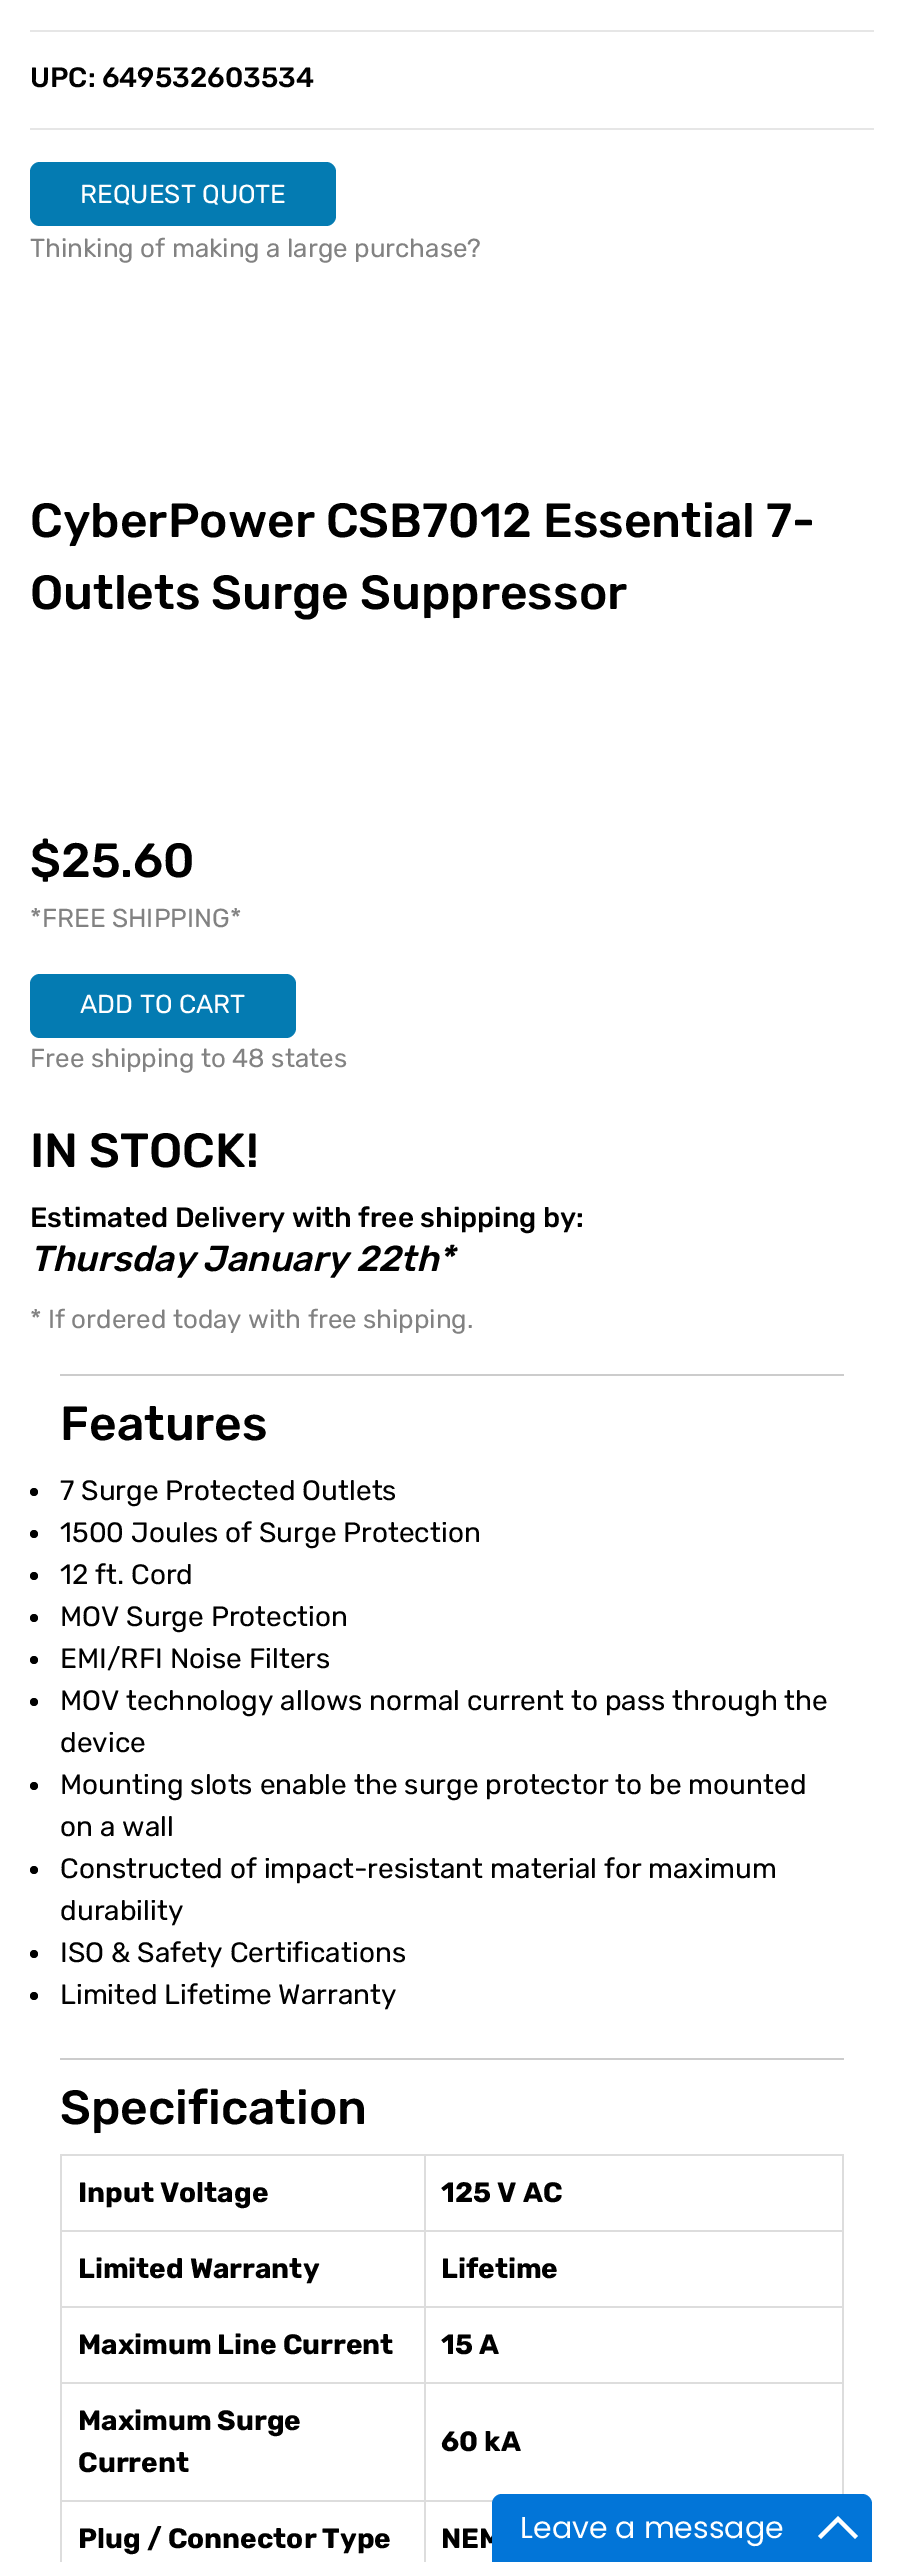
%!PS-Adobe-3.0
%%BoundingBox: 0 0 904 2562
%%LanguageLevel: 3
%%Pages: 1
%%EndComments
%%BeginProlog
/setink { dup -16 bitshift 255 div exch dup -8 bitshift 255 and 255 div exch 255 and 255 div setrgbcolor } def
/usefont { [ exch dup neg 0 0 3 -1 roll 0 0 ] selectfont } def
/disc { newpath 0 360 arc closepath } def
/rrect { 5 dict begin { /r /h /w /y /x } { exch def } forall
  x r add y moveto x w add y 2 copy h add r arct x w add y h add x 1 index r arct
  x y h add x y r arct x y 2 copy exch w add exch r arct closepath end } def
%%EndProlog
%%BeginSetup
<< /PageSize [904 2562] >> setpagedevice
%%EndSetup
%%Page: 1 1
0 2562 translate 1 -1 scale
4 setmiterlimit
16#FFFFFF setink
0 0 904 2562 rectfill
16#E6E6E6 setink
30 30 844 2 rectfill
/Rubik-Medium 28 usefont
16#000000 setink
30 87 moveto (UPC: 649532603534) show
16#E6E6E6 setink
30 128 844 2 rectfill
16#047BB2 setink
30 162 306 64 10 rrect fill
/Rubik-Regular 26 usefont
16#FFFFFF setink
80 203 moveto (REQUEST QUOTE) show
16#828282 setink
30 257 moveto (Thinking of making a large purchase?) show
/Rubik-Medium 48 usefont
16#000000 setink
[
    [(CyberPower CSB7012 Essential 7-) 30 537]
    [(Outlets Surge Suppressor) 30 609]
    [($25.60) 30 877]
] { aload pop moveto show } forall
/Rubik-Regular 26 usefont
16#828282 setink
30 927 moveto (*FREE SHIPPING*) show
16#047BB2 setink
30 974 266 64 10 rrect fill
16#FFFFFF setink
80 1013 moveto (ADD TO CART) show
16#828282 setink
30 1067 moveto (Free shipping to 48 states) show
/Rubik-Medium 48 usefont
16#000000 setink
30 1167 moveto (IN STOCK!) show
/Rubik-Medium 28 usefont
30 1227 moveto (Estimated Delivery with free shipping by:) show
/Rubik-MediumItalic 36 usefont
30 1271 moveto (Thursday January 22th*) show
/Rubik-Regular 26 usefont
16#828282 setink
30 1328 moveto (* If ordered today with free shipping.) show
16#CCCCCC setink
60 1374 784 2 rectfill
60 2058 784 2 rectfill
/Rubik-Medium 48 usefont
16#000000 setink
60 1440 moveto (Features) show
34 1492 4 disc fill
/Rubik-Regular 28 usefont
60 1500 moveto (7 Surge Protected Outlets) show
34 1534 4 disc fill
60 1542 moveto (1500 Joules of Surge Protection) show
34 1576 4 disc fill
60 1584 moveto (12 ft. Cord) show
34 1618 4 disc fill
60 1626 moveto (MOV Surge Protection) show
34 1660 4 disc fill
60 1668 moveto (EMI/RFI Noise Filters) show
34 1702 4 disc fill
60 1710 moveto (MOV technology allows normal current to pass through the) show
60 1752 moveto (device) show
34 1786 4 disc fill
60 1794 moveto (Mounting slots enable the surge protector to be mounted) show
60 1836 moveto (on a wall) show
34 1870 4 disc fill
60 1878 moveto (Constructed of impact-resistant material for maximum) show
60 1920 moveto (durability) show
34 1954 4 disc fill
60 1962 moveto (ISO & Safety Certifications) show
34 1996 4 disc fill
60 2004 moveto (Limited Lifetime Warranty) show
/Rubik-Medium 48 usefont
60 2124 moveto (Specification) show
[
    [424 2154 420 2 16#DDDDDD]
    [424 2230 420 2 16#DDDDDD]
    [424 2306 420 2 16#DDDDDD]
    [424 2382 420 2 16#DDDDDD]
    [424 2500 69 2 16#DDDDDD]
    [424 2500 2 62 16#DDDDDD]
    [60 2500 366 2 16#DDDDDD]
    [424 2382 2 120 16#DDDDDD]
    [60 2382 366 2 16#DDDDDD]
    [424 2306 2 78 16#DDDDDD]
    [60 2306 366 2 16#DDDDDD]
    [424 2230 2 78 16#DDDDDD]
    [60 2230 366 2 16#DDDDDD]
    [424 2154 2 78 16#DDDDDD]
    [60 2154 366 2 16#DDDDDD]
    [60 2500 2 62 16#DDDDDD]
    [60 2382 2 120 16#DDDDDD]
    [60 2306 2 78 16#DDDDDD]
    [60 2230 2 78 16#DDDDDD]
    [60 2154 2 78 16#DDDDDD]
] { aload pop setink rectfill } forall
/Rubik-Bold 28 usefont
16#000000 setink
78 2202 moveto (Input Voltage) show
[
    [842 2382 2 120 16#DDDDDD]
    [842 2306 2 78 16#DDDDDD]
    [842 2230 2 78 16#DDDDDD]
    [842 2154 2 78 16#DDDDDD]
] { aload pop setink rectfill } forall
16#000000 setink
[
    [(125 V AC) 441 2202]
    [(Limited Warranty) 78 2278]
    [(Lifetime) 441 2278]
    [(Maximum Line Current) 78 2354]
    [(15 A) 441 2354]
    [(Maximum Surge) 78 2430]
    [(Current) 78 2472]
    [(60 kA) 441 2451]
    [(Plug / Connector Type) 78 2548]
    [(NEM) 441 2548]
] { aload pop moveto show } forall
16#0275D8 setink
502 2494 moveto 862 2494 lineto 867.5 2494 872 2498.5 872 2504 curveto 872 2562 lineto 492 2562 lineto 492 2504 lineto 492 2498.5 496.5 2494 502 2494 curveto closepath fill
/Poppins-Regular 30 usefont
16#FFFFFF setink
520 2538 moveto (Leave a message) show
838 2516 moveto 858 2536 lineto 855 2539 lineto 838 2522 lineto 821 2539 lineto 818 2536 lineto closepath fill
showpage
%%EOF
